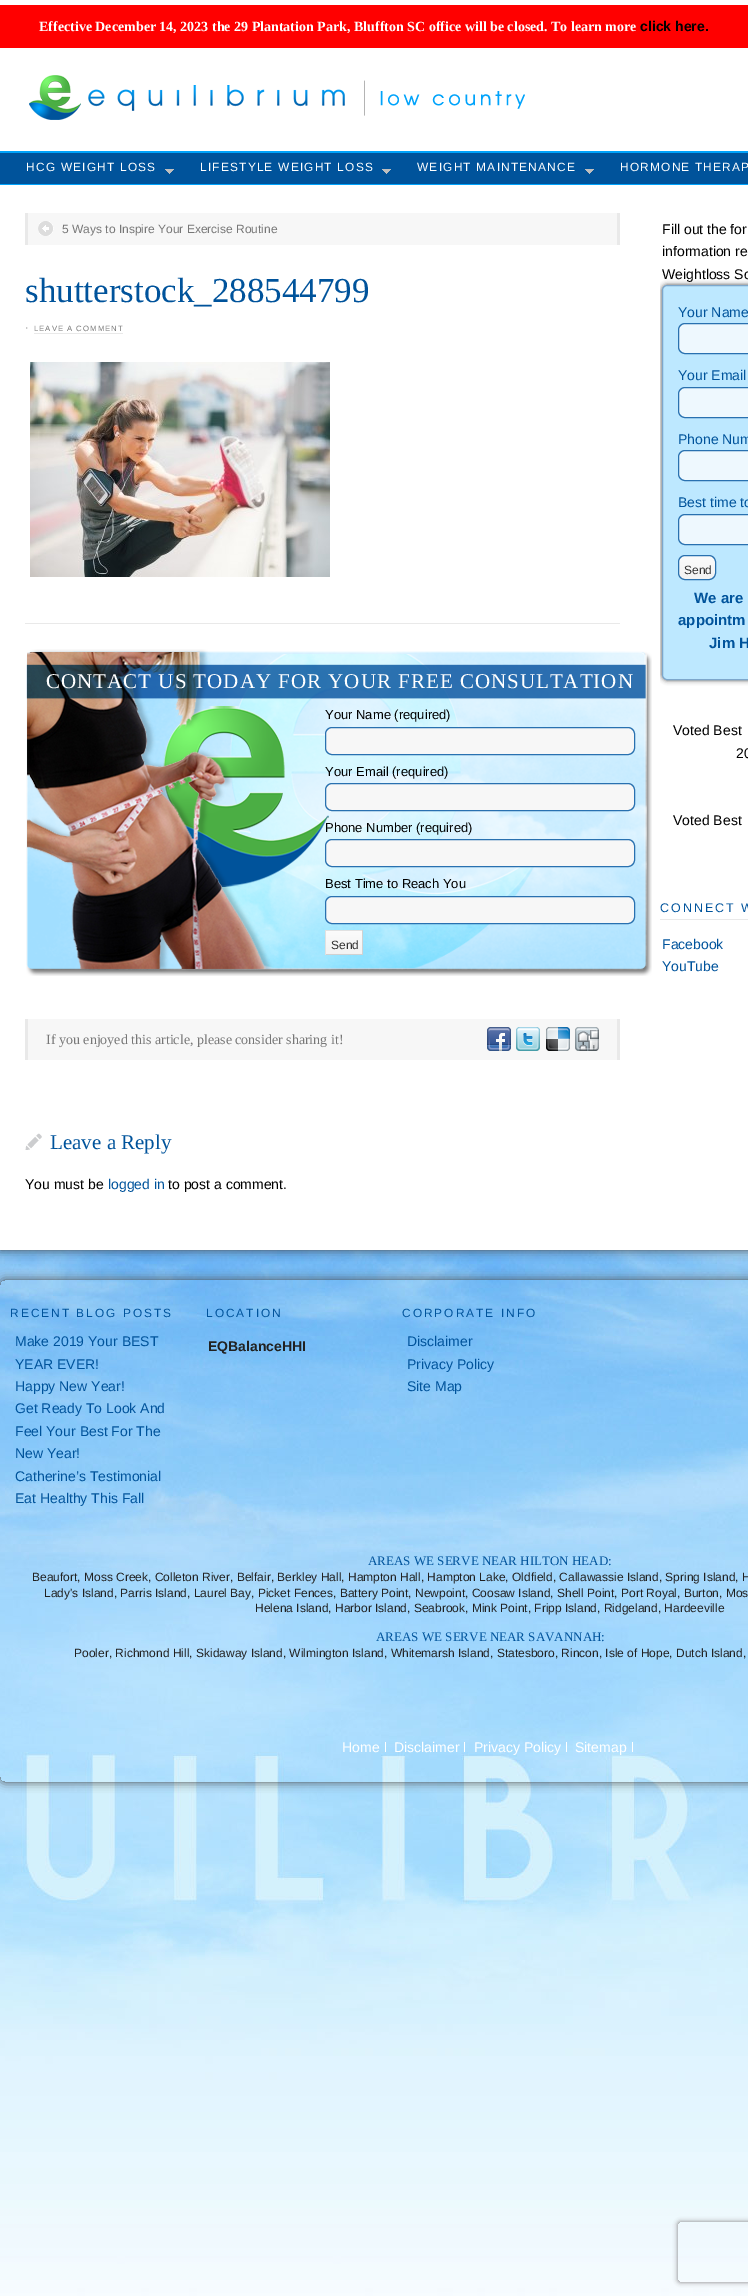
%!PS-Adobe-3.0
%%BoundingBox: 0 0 748 2296
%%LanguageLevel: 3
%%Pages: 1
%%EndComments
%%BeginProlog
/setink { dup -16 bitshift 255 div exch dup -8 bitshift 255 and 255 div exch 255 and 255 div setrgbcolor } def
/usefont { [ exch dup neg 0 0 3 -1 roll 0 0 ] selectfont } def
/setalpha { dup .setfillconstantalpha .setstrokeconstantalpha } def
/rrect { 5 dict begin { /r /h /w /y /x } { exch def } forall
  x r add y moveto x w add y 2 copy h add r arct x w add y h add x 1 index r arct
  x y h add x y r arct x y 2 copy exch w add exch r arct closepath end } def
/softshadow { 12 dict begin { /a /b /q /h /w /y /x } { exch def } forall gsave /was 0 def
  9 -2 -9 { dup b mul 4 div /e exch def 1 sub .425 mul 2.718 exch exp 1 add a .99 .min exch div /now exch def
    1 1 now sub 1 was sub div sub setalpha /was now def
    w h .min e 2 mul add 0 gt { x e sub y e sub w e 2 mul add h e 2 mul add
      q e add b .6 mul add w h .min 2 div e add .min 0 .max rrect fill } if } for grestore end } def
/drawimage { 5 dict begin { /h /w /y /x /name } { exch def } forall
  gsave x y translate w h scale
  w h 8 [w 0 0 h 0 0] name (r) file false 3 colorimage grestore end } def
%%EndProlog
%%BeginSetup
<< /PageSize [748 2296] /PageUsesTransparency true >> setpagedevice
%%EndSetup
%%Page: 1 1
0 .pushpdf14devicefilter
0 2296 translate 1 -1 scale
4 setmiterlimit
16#FFFFFF setink
0 0 748 2296 rectfill
(img1.raw) 0 1250 748 1046 drawimage
16#4B4B4B setink
0 48 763 1202 0 5 1 softshadow
16#FF0000 setink
0 5 748 43 rectfill
/LiberationSerif-Bold 14 usefont
16#FFFFFF setink
39 31 moveto (Effective December 14, 2023 the 29 Plantation Park, Bluffton SC office will be closed. To learn more) show
/LiberationSans-Bold 14 usefont
16#000000 setink
640 31 moveto (click here.) show
16#FFFFFF setink
0 48 748 1202 rectfill
(img2.raw) 29 75 496 45 drawimage
[
    [0 153 748 31 16#00539B]
    [0 151 748 2 16#00A3FB]
    [0 184 748 1 16#00A3FB]
] { aload pop setink rectfill } forall
/LiberationSans-Regular 11.9 usefont
16#FFFFFF setink
26 171 moveto 1.2 0 (HCG WEIGHT LOSS) ashow
(img3.raw) 165 169 9 5 drawimage
200 171 moveto 1.2 0 (LIFESTYLE WEIGHT LOSS) ashow
(img3.raw) 382 169 9 5 drawimage
417 171 moveto 1.2 0 (WEIGHT MAINTENANCE) ashow
(img3.raw) 585 169 9 5 drawimage
620 171 moveto 1.2 0 (HORMONE THERAP) ashow
[
    [28 213 589 32 16#F7F7F7]
    [617 213 3 32 16#E9E9E9]
    [25 213 3 32 16#E9E9E9]
] { aload pop setink rectfill } forall
(img4.raw) 38 221 16 15 drawimage
/LiberationSans-Regular 12 usefont
16#777777 setink
62 233 moveto (5 Ways to Inspire Your Exercise Routine) show
16#E9E9E9 setink
25 623 595 1 rectfill
/LiberationSerif-Regular 35 usefont
16#00539B setink
25 302 moveto (shutterstock_288544799) show
/LiberationSans-Regular 11 usefont
16#777777 setink
25 331 moveto 1 0 (·) ashow
/LiberationSans-Regular 7.75 usefont
34 331 moveto 1 0 (LEAVE A COMMENT) ashow
16#E9E9E9 setink
34 333 89 1 rectfill
(img5.raw) 30 362 300 215 drawimage
(img6.raw) 26 649 626 327 drawimage
/LiberationSerif-Regular 21 usefont
16#FFFFFF setink
46 688 moveto 1 0 (CONTACT US TODAY FOR YOUR FREE CONSULTATION) ashow
/LiberationSans-Regular 13 usefont
16#000000 setink
325 719 moveto (Your Name \(required\)) show
16#F7F7F7 setink
325.5 727.5 309 27 6.5 rrect gsave fill grestore
16#2971B0 setink
stroke
16#000000 setink
325 776 moveto (Your Email \(required\)) show
16#F7F7F7 setink
325.5 783.5 309 27 6.5 rrect gsave fill grestore
16#2971B0 setink
stroke
16#000000 setink
325 832 moveto (Phone Number \(required\)) show
16#F7F7F7 setink
325.5 839.5 309 27 6.5 rrect gsave fill grestore
16#2971B0 setink
stroke
16#000000 setink
325 888 moveto (Best Time to Reach You) show
16#F7F7F7 setink
325.5 896.5 309 27 6.5 rrect gsave fill grestore
16#2971B0 setink
stroke
(img7.raw) 326 931 36 23 drawimage
[
    [325 930 38 1 16#E1E1E1]
    [362 930 1 25 16#D1D1D1]
    [325 954 38 1 16#D1D1D1]
    [325 930 1 25 16#E1E1E1]
] { aload pop setink rectfill } forall
/LiberationSans-Regular 12 usefont
16#333333 setink
331 949 moveto (Send) show
[
    [28 1019 589 41 16#F7F7F7]
    [617 1019 3 41 16#E9E9E9]
    [25 1019 3 41 16#E9E9E9]
] { aload pop setink rectfill } forall
/LiberationSerif-Regular 14 usefont
16#777777 setink
46 1044 moveto (If you enjoyed this article, please consider sharing it!) show
(img8.raw) 487 1027 24 24 drawimage
(img9.raw) 516 1027 24 24 drawimage
(img10.raw) 546 1027 24 24 drawimage
(img11.raw) 575 1027 24 24 drawimage
(img12.raw) 25 1133 17 17 drawimage
/LiberationSerif-Regular 21 usefont
16#00539B setink
50 1149 moveto (Leave a Reply) show
/LiberationSans-Regular 14 usefont
16#000000 setink
25 1189 moveto (You must be) show
16#00539B setink
108 1189 moveto (logged in) show
16#000000 setink
[
    [(to post a comment.) 168 1189]
    [(Fill out the for) 662 234]
    [(information re) 662 256]
    [(Weightloss So) 662 279]
] { aload pop moveto show } forall
gsave
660 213 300 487 rectclip
16#4B4B4B setink
662 285 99 395 5 2.5 1 softshadow
grestore
16#BDE8FF setink
662.5 285.5 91 394 4.5 rrect gsave fill grestore
16#7DA7CC setink
stroke
16#00539B setink
678 317 moveto (Your Name) show
16#EEF8FE setink
678.5 323.5 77 30 6.5 rrect gsave fill grestore
16#2971B0 setink
stroke
16#00539B setink
678 380 moveto (Your Email) show
16#EEF8FE setink
678.5 387.5 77 30 6.5 rrect gsave fill grestore
16#2971B0 setink
stroke
16#00539B setink
678 444 moveto (Phone Num) show
16#EEF8FE setink
678.5 450.5 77 30 6.5 rrect gsave fill grestore
16#2971B0 setink
stroke
16#00539B setink
678 507 moveto (Best time to) show
16#EEF8FE setink
678.5 514.5 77 30 6.5 rrect gsave fill grestore
16#2971B0 setink
stroke
(img13.raw) 678 555 38 24 drawimage
678.5 555.5 37 24 6.5 rrect stroke
/LiberationSans-Regular 12 usefont
16#333333 setink
684 574 moveto (Send) show
/LiberationSans-Bold 15 usefont
16#00539B setink
[
    [(We are) 694 603]
    [(appointm) 678 625]
    [(Jim H) 709 648]
] { aload pop moveto show } forall
/LiberationSans-Regular 14 usefont
16#000000 setink
[
    [(Voted Best) 673 735]
    [(20) 736 758]
    [(Voted Best) 673 825]
] { aload pop moveto show } forall
16#E9E9E9 setink
660 919 88 1 rectfill
/LiberationSans-Regular 12.5 usefont
16#00539B setink
660 912 moveto 2 0 (CONNECT W) ashow
/LiberationSans-Regular 14 usefont
662 949 moveto (Facebook) show
662 971 moveto (YouTube) show
gsave
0 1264 moveto 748 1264 lineto 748 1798 lineto 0 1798 lineto closepath 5 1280 moveto 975 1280 lineto 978 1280 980 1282 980 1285 curveto 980 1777 lineto 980 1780 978 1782 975 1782 curveto 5 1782 lineto 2 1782 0 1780 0 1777 curveto 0 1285 lineto 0 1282 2 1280 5 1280 curveto closepath eoclip newpath
16#4B4B4B setink
0 1280 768 502 5 5 1 softshadow
grestore
/LiberationSans-Regular 11.9 usefont
10 1317 moveto 2 0 (RECENT BLOG POSTS) ashow
/LiberationSans-Regular 14 usefont
[
    [(Make 2019 Your BEST) 15 1346]
    [(YEAR EVER!) 15 1369]
    [(Happy New Year!) 15 1391]
    [(Get Ready To Look And) 15 1413]
    [(Feel Your Best For The) 15 1436]
    [(New Year!) 15 1458]
    [(Catherine’s Testimonial) 15 1481]
    [(Eat Healthy This Fall) 15 1503]
] { aload pop moveto show } forall
/LiberationSans-Regular 11.9 usefont
206 1317 moveto 2 0 (LOCATION) ashow
/LiberationSans-Bold 14 usefont
16#212121 setink
208 1351 moveto (EQBalanceHHI) show
/LiberationSans-Regular 11.9 usefont
16#00539B setink
402 1317 moveto 2 0 (CORPORATE INFO) ashow
/LiberationSans-Regular 14 usefont
[
    [(Disclaimer) 407 1346]
    [(Privacy Policy) 407 1369]
    [(Site Map) 407 1391]
] { aload pop moveto show } forall
/LiberationSerif-Regular 13 usefont
368 1565 moveto (AREAS WE SERVE NEAR HILTON HEAD:) show
/LiberationSans-Regular 12 usefont
16#212121 setink
[
    [(Beaufort, Moss Creek, Colleton River, Belfair, Berkley Hall, Hampton Hall, Hampton Lake, Oldfield, Callawassie Island, Spring Island, H) 32 1581]
    [(Lady's Island, Parris Island, Laurel Bay, Picket Fences, Battery Point, Newpoint, Coosaw Island, Shell Point, Port Royal, Burton, Mos) 44 1597]
    [(Helena Island, Harbor Island, Seabrook, Mink Point, Fripp Island, Ridgeland, Hardeeville) 255 1612]
] { aload pop moveto show } forall
/LiberationSerif-Regular 13 usefont
16#00539B setink
376 1641 moveto (AREAS WE SERVE NEAR SAVANNAH:) show
/LiberationSans-Regular 12 usefont
16#212121 setink
74 1657 moveto (Pooler, Richmond Hill, Skidaway Island, Wilmington Island, Whitemarsh Island, Statesboro, Rincon, Isle of Hope, Dutch Island,) show
16#FFFFFF setink
385 1742 1 10 rectfill
/LiberationSans-Regular 14 usefont
342 1752 moveto (Home) show
464 1742 1 10 rectfill
394 1752 moveto (Disclaimer) show
566 1742 1 10 rectfill
474 1752 moveto (Privacy Policy) show
632 1742 1 10 rectfill
575 1752 moveto (Sitemap) show
gsave
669 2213 moveto 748 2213 lineto 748 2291 lineto 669 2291 lineto closepath 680 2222 moveto 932 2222 lineto 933 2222 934 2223 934 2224 curveto 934 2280 lineto 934 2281 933 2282 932 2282 curveto 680 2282 lineto 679 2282 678 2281 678 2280 curveto 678 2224 lineto 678 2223 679 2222 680 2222 curveto closepath eoclip newpath
16#808080 setink
678 2222 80 60 2 2.5 1 softshadow
grestore
.poppdf14devicefilter showpage
%%EOF
